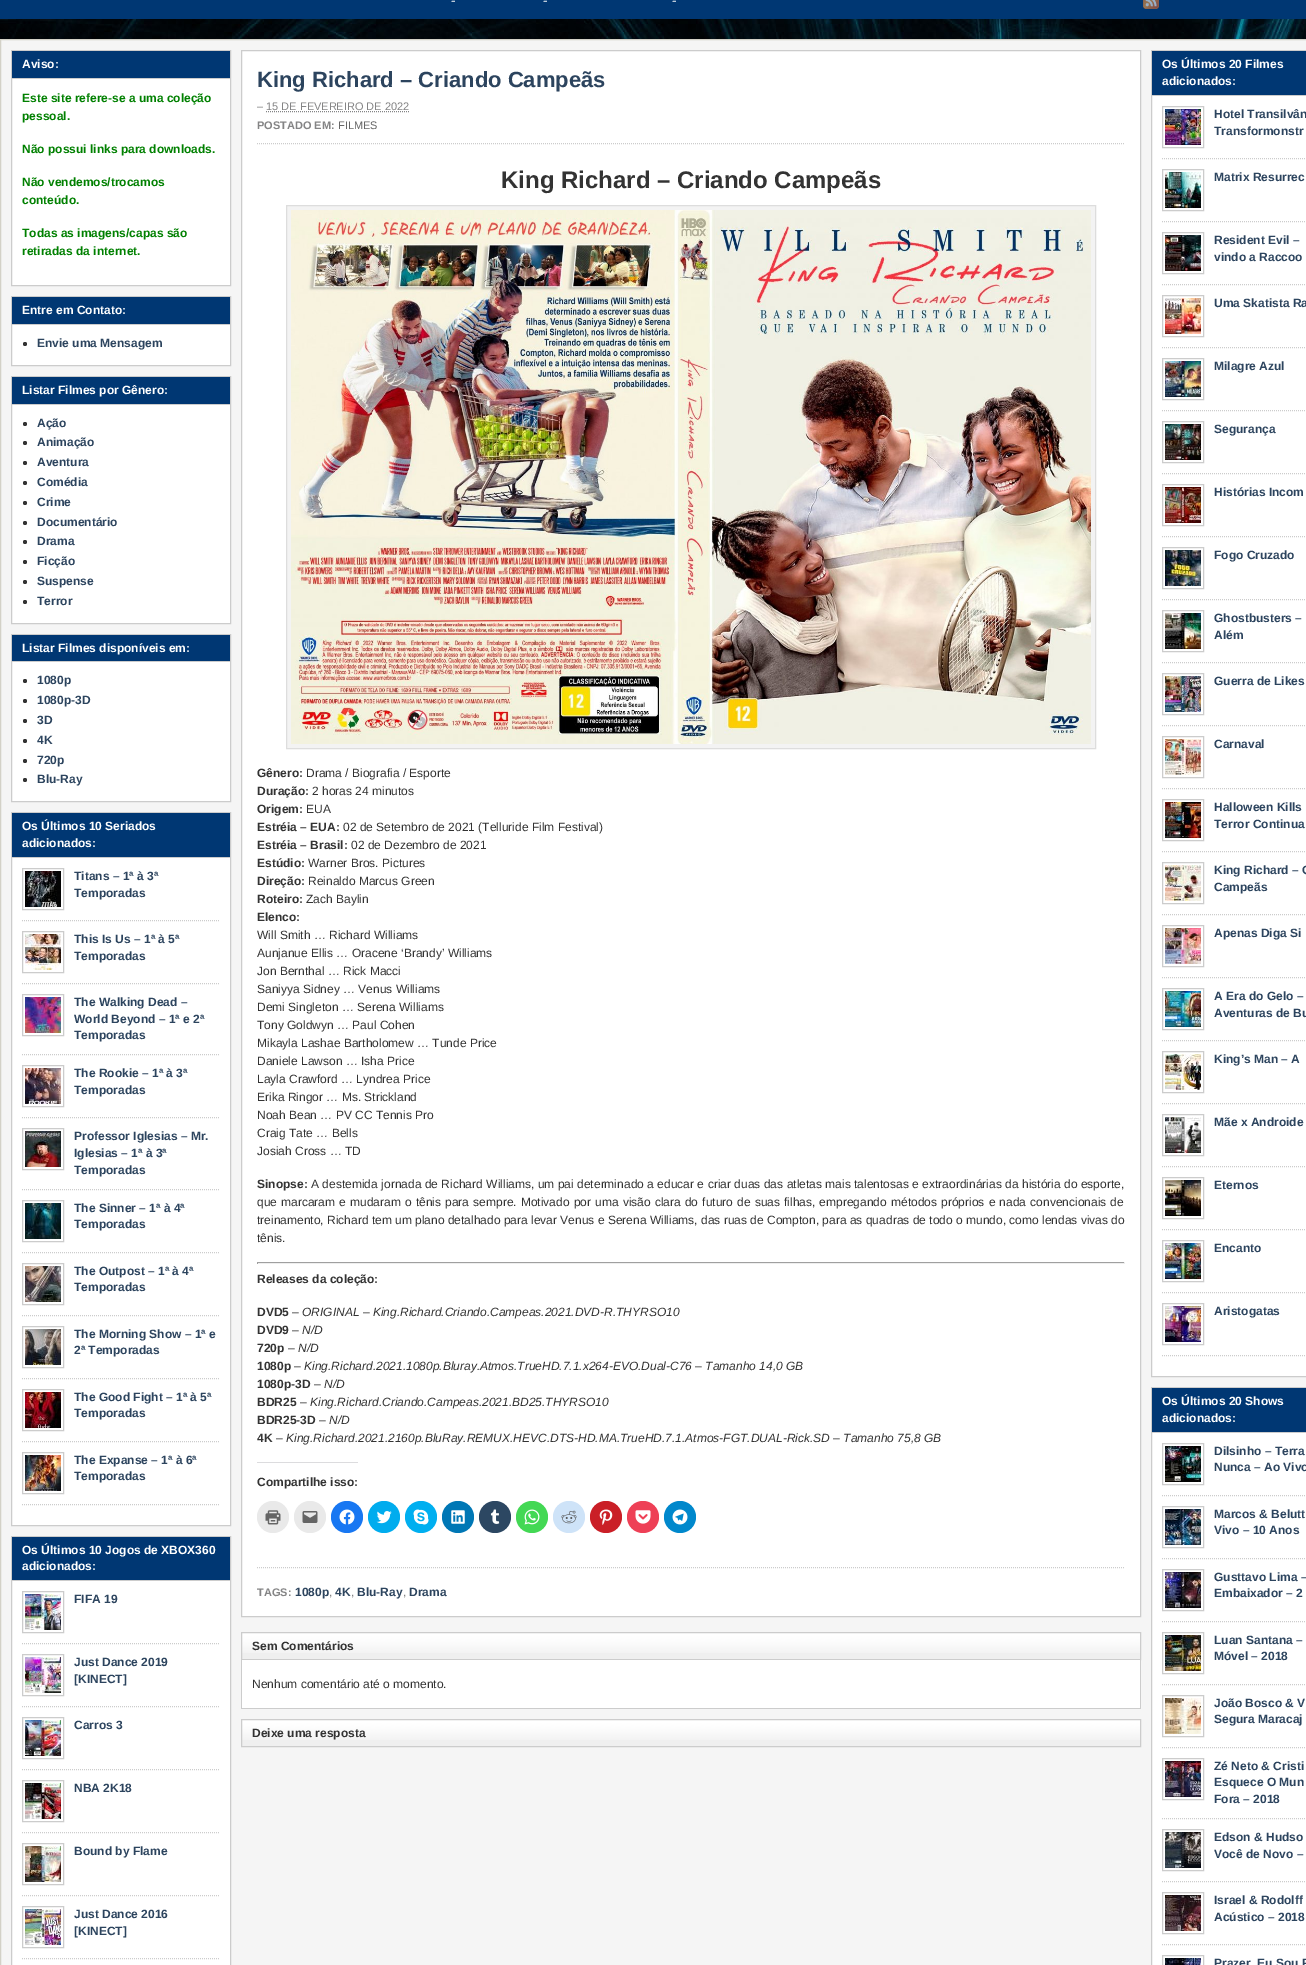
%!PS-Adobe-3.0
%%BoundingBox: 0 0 1306 1965
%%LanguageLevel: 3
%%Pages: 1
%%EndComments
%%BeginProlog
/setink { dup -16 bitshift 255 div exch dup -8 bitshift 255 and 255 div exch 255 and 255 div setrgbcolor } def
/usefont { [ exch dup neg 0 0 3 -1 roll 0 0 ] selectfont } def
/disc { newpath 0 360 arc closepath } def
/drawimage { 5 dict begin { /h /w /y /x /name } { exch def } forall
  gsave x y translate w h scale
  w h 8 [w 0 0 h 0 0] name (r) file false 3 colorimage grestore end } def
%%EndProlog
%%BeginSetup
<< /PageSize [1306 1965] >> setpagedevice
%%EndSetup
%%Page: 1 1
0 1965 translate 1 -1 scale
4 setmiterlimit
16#003773 setink
0 0 1306 1965 rectfill
/LiberationSans-Regular 14 usefont
16#FFFFFF setink
[
    [(-) 451 5]
    [(-) 543 5]
    [(-) 672 5]
] { aload pop moveto show } forall
(img1.raw) 1143 0 16 9 drawimage
(img2.raw) 0 19 1306 20 drawimage
16#F5F5F5 setink
0.5 39.5 moveto 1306.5 39.5 lineto 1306.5 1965.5 lineto 0.5 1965.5 lineto closepath gsave fill grestore
16#D3D1C7 setink
stroke
16#FFFFFF setink
12 79 218 206 rectfill
16#CCCCCC setink
11.5 50.5 219 235 rectstroke
16#003773 setink
12 51 218 27 rectfill
16#CCCCCC setink
12 78 218 1 rectfill
/LiberationSans-Bold 12 usefont
16#FFFFFF setink
22 68 moveto (Aviso:) show
16#008000 setink
[
    [(Este site refere-se a uma coleção) 22 102]
    [(pessoal.) 22 120]
    [(Não possui links para downloads.) 22 153]
    [(Não vendemos/trocamos) 22 186]
    [(conteúdo.) 22 204]
    [(Todas as imagens/capas são) 22 237]
    [(retiradas da internet.) 22 255]
] { aload pop moveto show } forall
16#FFFFFF setink
12 325 218 40 rectfill
16#CCCCCC setink
11.5 296.5 219 69 rectstroke
16#003773 setink
12 297 218 27 rectfill
16#CCCCCC setink
12 324 218 1 rectfill
16#FFFFFF setink
22 314 moveto (Entre em Contato:) show
16#333333 setink
25 344 2 disc fill
16#2C445E setink
37 347 moveto (Envie uma Mensagem) show
16#FFFFFF setink
12 405 218 218 rectfill
16#CCCCCC setink
11.5 376.5 219 247 rectstroke
16#003773 setink
12 377 218 27 rectfill
16#CCCCCC setink
12 404 218 1 rectfill
16#FFFFFF setink
22 394 moveto (Listar Filmes por Gênero:) show
16#333333 setink
25 424 2 disc fill
16#2C445E setink
37 427 moveto (Ação) show
16#333333 setink
25 443 2 disc fill
16#2C445E setink
37 446 moveto (Animação) show
16#333333 setink
25 463 2 disc fill
16#2C445E setink
37 466 moveto (Aventura) show
16#333333 setink
25 483 2 disc fill
16#2C445E setink
37 486 moveto (Comédia) show
16#333333 setink
25 503 2 disc fill
16#2C445E setink
37 506 moveto (Crime) show
16#333333 setink
25 523 2 disc fill
16#2C445E setink
37 526 moveto (Documentário) show
16#333333 setink
25 542 2 disc fill
16#2C445E setink
37 545 moveto (Drama) show
16#333333 setink
25 562 2 disc fill
16#2C445E setink
37 565 moveto (Ficção) show
16#333333 setink
25 582 2 disc fill
16#2C445E setink
37 585 moveto (Suspense) show
16#333333 setink
25 602 2 disc fill
16#2C445E setink
37 605 moveto (Terror) show
16#FFFFFF setink
12 662 218 139 rectfill
16#CCCCCC setink
11.5 634.5 219 167 rectstroke
16#003773 setink
12 635 218 26 rectfill
16#CCCCCC setink
12 661 218 1 rectfill
16#FFFFFF setink
22 652 moveto (Listar Filmes disponíveis em:) show
16#333333 setink
25 681 2 disc fill
16#2C445E setink
37 684 moveto (1080p) show
16#333333 setink
25 701 2 disc fill
16#2C445E setink
37 704 moveto (1080p-3D) show
16#333333 setink
25 721 2 disc fill
16#2C445E setink
37 724 moveto (3D) show
16#333333 setink
25 741 2 disc fill
16#2C445E setink
37 744 moveto (4K) show
16#333333 setink
25 761 2 disc fill
16#2C445E setink
37 764 moveto (720p) show
16#333333 setink
25 780 2 disc fill
16#2C445E setink
37 783 moveto (Blu-Ray) show
16#FFFFFF setink
12 858 218 667 rectfill
16#CCCCCC setink
11.5 812.5 219 713 rectstroke
16#003773 setink
12 813 218 44 rectfill
16#CCCCCC setink
12 857 218 1 rectfill
16#FFFFFF setink
22 830 moveto (Os Últimos 10 Seriados) show
22 847 moveto (adicionados:) show
16#CCCCCC setink
[1 1] 0 setdash
22 920.5 moveto 220 920.5 lineto stroke
[] 0 setdash
22.5 868.5 41 41 rectstroke
(img3.raw) 25 871 36 36 drawimage
16#2C445E setink
74 880 moveto (Titans – 1ª à 3ª) show
74 897 moveto (Temporadas) show
16#CCCCCC setink
[1 1] 0 setdash
22 983.5 moveto 220 983.5 lineto stroke
[] 0 setdash
22.5 931.5 41 41 rectstroke
(img4.raw) 25 934 36 36 drawimage
16#2C445E setink
74 943 moveto (This Is Us – 1ª à 5ª) show
74 960 moveto (Temporadas) show
16#CCCCCC setink
[1 1] 0 setdash
22 1054.5 moveto 220 1054.5 lineto stroke
[] 0 setdash
22.5 994.5 41 41 rectstroke
(img5.raw) 25 997 36 36 drawimage
16#2C445E setink
[
    [(The Walking Dead –) 74 1006]
    [(World Beyond – 1ª e 2ª) 74 1023]
    [(Temporadas) 74 1039]
] { aload pop moveto show } forall
16#CCCCCC setink
[1 1] 0 setdash
22 1117.5 moveto 220 1117.5 lineto stroke
[] 0 setdash
22.5 1065.5 41 41 rectstroke
(img6.raw) 25 1068 36 36 drawimage
16#2C445E setink
74 1077 moveto (The Rookie – 1ª à 3ª) show
74 1094 moveto (Temporadas) show
16#CCCCCC setink
[1 1] 0 setdash
22 1189.5 moveto 220 1189.5 lineto stroke
[] 0 setdash
22.5 1128.5 41 41 rectstroke
(img7.raw) 25 1131 36 36 drawimage
16#2C445E setink
[
    [(Professor Iglesias – Mr.) 74 1140]
    [(Iglesias – 1ª à 3ª) 74 1157]
    [(Temporadas) 74 1174]
] { aload pop moveto show } forall
16#CCCCCC setink
[1 1] 0 setdash
22 1252.5 moveto 220 1252.5 lineto stroke
[] 0 setdash
22.5 1200.5 41 41 rectstroke
(img8.raw) 25 1203 36 36 drawimage
16#2C445E setink
74 1212 moveto (The Sinner – 1ª à 4ª) show
74 1228 moveto (Temporadas) show
16#CCCCCC setink
[1 1] 0 setdash
22 1315.5 moveto 220 1315.5 lineto stroke
[] 0 setdash
22.5 1263.5 41 41 rectstroke
(img9.raw) 25 1266 36 36 drawimage
16#2C445E setink
74 1275 moveto (The Outpost – 1ª à 4ª) show
74 1291 moveto (Temporadas) show
16#CCCCCC setink
[1 1] 0 setdash
22 1378.5 moveto 220 1378.5 lineto stroke
[] 0 setdash
22.5 1326.5 41 41 rectstroke
(img10.raw) 25 1329 36 36 drawimage
16#2C445E setink
74 1338 moveto (The Morning Show – 1ª e) show
74 1354 moveto (2ª Temporadas) show
16#CCCCCC setink
[1 1] 0 setdash
22 1441.5 moveto 220 1441.5 lineto stroke
[] 0 setdash
22.5 1389.5 41 41 rectstroke
(img11.raw) 25 1392 36 36 drawimage
16#2C445E setink
74 1401 moveto (The Good Fight – 1ª à 5ª) show
74 1417 moveto (Temporadas) show
16#CCCCCC setink
[1 1] 0 setdash
22 1504.5 moveto 220 1504.5 lineto stroke
[] 0 setdash
22.5 1452.5 41 41 rectstroke
(img12.raw) 25 1455 36 36 drawimage
16#2C445E setink
74 1464 moveto (The Expanse – 1ª à 6ª) show
74 1480 moveto (Temporadas) show
16#FFFFFF setink
12 1581 218 384 rectfill
16#CCCCCC setink
11.5 1536.5 219 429 rectstroke
16#003773 setink
12 1537 218 43 rectfill
16#CCCCCC setink
12 1580 218 1 rectfill
16#FFFFFF setink
22 1554 moveto (Os Últimos 10 Jogos de XBOX360) show
22 1570 moveto (adicionados:) show
16#CCCCCC setink
[1 1] 0 setdash
22 1643.5 moveto 220 1643.5 lineto stroke
[] 0 setdash
22.5 1591.5 41 41 rectstroke
(img13.raw) 25 1594 36 36 drawimage
16#2C445E setink
74 1603 moveto (FIFA 19) show
16#CCCCCC setink
[1 1] 0 setdash
22 1706.5 moveto 220 1706.5 lineto stroke
[] 0 setdash
22.5 1654.5 41 41 rectstroke
(img14.raw) 25 1657 36 36 drawimage
16#2C445E setink
74 1666 moveto (Just Dance 2019) show
74 1683 moveto ([KINECT]) show
16#CCCCCC setink
[1 1] 0 setdash
22 1769.5 moveto 220 1769.5 lineto stroke
[] 0 setdash
22.5 1717.5 41 41 rectstroke
(img15.raw) 25 1720 36 36 drawimage
16#2C445E setink
74 1729 moveto (Carros 3) show
16#CCCCCC setink
[1 1] 0 setdash
22 1832.5 moveto 220 1832.5 lineto stroke
[] 0 setdash
22.5 1780.5 41 41 rectstroke
(img16.raw) 25 1783 36 36 drawimage
16#2C445E setink
74 1792 moveto (NBA 2K18) show
16#CCCCCC setink
[1 1] 0 setdash
22 1895.5 moveto 220 1895.5 lineto stroke
[] 0 setdash
22.5 1843.5 41 41 rectstroke
(img17.raw) 25 1846 36 36 drawimage
16#2C445E setink
74 1855 moveto (Bound by Flame) show
16#CCCCCC setink
[1 1] 0 setdash
22 1958.5 moveto 220 1958.5 lineto stroke
[] 0 setdash
22.5 1906.5 41 41 rectstroke
(img18.raw) 25 1909 36 36 drawimage
16#2C445E setink
74 1918 moveto (Just Dance 2016) show
74 1935 moveto ([KINECT]) show
16#FFFFFF setink
241.5 50.5 moveto 1140.5 50.5 lineto 1140.5 1616.5 lineto 241.5 1616.5 lineto closepath gsave fill grestore
16#CCCCCC setink
stroke
/LiberationSans-Bold 22 usefont
16#2C445E setink
257 87 moveto (King Richard – Criando Campeãs) show
16#CCCCCC setink
[1 1] 0 setdash
257 143.5 moveto 1125 143.5 lineto stroke
/LiberationSans-Regular 11 usefont
16#848485 setink
257 110 moveto (– 15 DE FEVEREIRO DE 2022) show
266 111.5 moveto 409 111.5 lineto stroke
/LiberationSans-Bold 11 usefont
257 129 moveto (POSTADO EM:) show
/LiberationSans-Regular 11 usefont
16#666666 setink
338 129 moveto (FILMES) show
/LiberationSans-Bold 24 usefont
16#333333 setink
501 188 moveto (King Richard – Criando Campeãs) show
16#F3F3F3 setink
286.5 205.5 moveto 1095.5 205.5 lineto 1095.5 748.5 lineto 286.5 748.5 lineto closepath gsave fill grestore
16#DDDDDD setink
[] 0 setdash
stroke
(img19.raw) 291 210 800 534 drawimage
/LiberationSans-Bold 12 usefont
16#333333 setink
257 777 moveto (Gênero:) show
/LiberationSans-Regular 12 usefont
306 777 moveto (Drama / Biografia / Esporte) show
/LiberationSans-Bold 12 usefont
257 795 moveto (Duração:) show
/LiberationSans-Regular 12 usefont
312 795 moveto (2 horas 24 minutos) show
/LiberationSans-Bold 12 usefont
257 813 moveto (Origem:) show
/LiberationSans-Regular 12 usefont
306 813 moveto (EUA) show
/LiberationSans-Bold 12 usefont
257 831 moveto (Estréia – EUA:) show
/LiberationSans-Regular 12 usefont
343 831 moveto (02 de Setembro de 2021 \(Telluride Film Festival\)) show
/LiberationSans-Bold 12 usefont
257 849 moveto (Estréia – Brasil:) show
/LiberationSans-Regular 12 usefont
351 849 moveto (02 de Dezembro de 2021) show
/LiberationSans-Bold 12 usefont
257 867 moveto (Estúdio:) show
/LiberationSans-Regular 12 usefont
308 867 moveto (Warner Bros. Pictures) show
/LiberationSans-Bold 12 usefont
257 885 moveto (Direção:) show
/LiberationSans-Regular 12 usefont
308 885 moveto (Reinaldo Marcus Green) show
/LiberationSans-Bold 12 usefont
257 903 moveto (Roteiro:) show
/LiberationSans-Regular 12 usefont
306 903 moveto (Zach Baylin) show
/LiberationSans-Bold 12 usefont
257 921 moveto (Elenco:) show
/LiberationSans-Regular 12 usefont
[
    [(Will Smith … Richard Williams) 257 939]
    [(Aunjanue Ellis … Oracene ‘Brandy’ Williams) 257 957]
    [(Jon Bernthal … Rick Macci) 257 975]
    [(Saniyya Sidney … Venus Williams) 257 993]
    [(Demi Singleton … Serena Williams) 257 1011]
    [(Tony Goldwyn … Paul Cohen) 257 1029]
    [(Mikayla Lashae Bartholomew … Tunde Price) 257 1047]
    [(Daniele Lawson … Isha Price) 257 1065]
    [(Layla Crawford … Lyndrea Price) 257 1083]
    [(Erika Ringor … Ms. Strickland) 257 1101]
    [(Noah Bean … PV CC Tennis Pro) 257 1119]
    [(Craig Tate … Bells) 257 1137]
    [(Josiah Cross … TD) 257 1155]
] { aload pop moveto show } forall
/LiberationSans-Bold 12 usefont
257 1188 moveto (Sinopse:) show
/LiberationSans-Regular 12 usefont
311 1188 moveto 0.1 0 32 (A destemida jornada de Richard Williams, um pai determinado a educar e criar duas das atletas mais talentosas e extraordinárias da história do esporte,) widthshow
257 1206 moveto 0.8 0 32 (que marcaram e mudaram o tênis para sempre. Motivado por uma visão clara do futuro de suas filhas, empregando métodos próprios e nada convencionais de) widthshow
257 1224 moveto (treinamento, Richard tem um plano detalhado para levar Venus e Serena Williams, das ruas de Compton, para as quadras de todo o mundo, como lendas vivas do) show
257 1242 moveto (tênis.) show
[
    [257 1262 868 1 16#9F9F9F]
    [1124 1262 1 2 16#EEEEEE]
    [257 1263 868 1 16#EEEEEE]
    [257 1262 1 2 16#9F9F9F]
] { aload pop setink rectfill } forall
/LiberationSans-Bold 12 usefont
16#333333 setink
257 1283 moveto (Releases da coleção:) show
257 1316 moveto (DVD5) show
/LiberationSans-Regular 12 usefont
292 1316 moveto (–) show
/LiberationSans-Italic 12 usefont
302 1316 moveto (ORIGINAL – King.Richard.Criando.Campeas.2021.DVD-R.THYRSO10) show
/LiberationSans-Bold 12 usefont
257 1334 moveto (DVD9) show
/LiberationSans-Regular 12 usefont
292 1334 moveto (–) show
/LiberationSans-Italic 12 usefont
302 1334 moveto (N/D) show
/LiberationSans-Bold 12 usefont
257 1352 moveto (720p) show
/LiberationSans-Regular 12 usefont
288 1352 moveto (–) show
/LiberationSans-Italic 12 usefont
298 1352 moveto (N/D) show
/LiberationSans-Bold 12 usefont
257 1370 moveto (1080p) show
/LiberationSans-Regular 12 usefont
294 1370 moveto (–) show
/LiberationSans-Italic 12 usefont
304 1370 moveto (King.Richard.2021.1080p.Bluray.Atmos.TrueHD.7.1.x264-EVO.Dual-C76 – Tamanho 14,0 GB) show
/LiberationSans-Bold 12 usefont
257 1388 moveto (1080p-3D) show
/LiberationSans-Regular 12 usefont
314 1388 moveto (–) show
/LiberationSans-Italic 12 usefont
324 1388 moveto (N/D) show
/LiberationSans-Bold 12 usefont
257 1406 moveto (BDR25) show
/LiberationSans-Regular 12 usefont
300 1406 moveto (–) show
/LiberationSans-Italic 12 usefont
310 1406 moveto (King.Richard.Criando.Campeas.2021.BD25.THYRSO10) show
/LiberationSans-Bold 12 usefont
257 1424 moveto (BDR25-3D) show
/LiberationSans-Regular 12 usefont
319 1424 moveto (–) show
/LiberationSans-Italic 12 usefont
329 1424 moveto (N/D) show
/LiberationSans-Bold 12 usefont
257 1442 moveto (4K) show
/LiberationSans-Regular 12 usefont
276 1442 moveto (–) show
/LiberationSans-Italic 12 usefont
286 1442 moveto (King.Richard.2021.2160p.BluRay.REMUX.HEVC.DTS-HD.MA.TrueHD.7.1.Atmos-FGT.DUAL-Rick.SD – Tamanho 75,8 GB) show
16#DCDCDE setink
257 1462 101 1 rectfill
/LiberationSans-Bold 12 usefont
16#333333 setink
257 1486 moveto (Compartilhe isso:) show
16#E9E9E9 setink
273 1517 16 disc fill
(img20.raw) 265 1510 16 15 drawimage
310 1517 16 disc fill
(img21.raw) 302 1511 16 12 drawimage
16#1877F2 setink
347 1517 16 disc fill
(img22.raw) 339 1509 16 16 drawimage
16#00ACEE setink
384 1517 16 disc fill
(img23.raw) 376 1511 16 13 drawimage
16#00AFF0 setink
421 1517 16 disc fill
(img24.raw) 413 1509 16 16 drawimage
16#0077B5 setink
458 1517 16 disc fill
(img25.raw) 451 1510 14 14 drawimage
16#2C4762 setink
495 1517 16 disc fill
(img26.raw) 490 1509 10 15 drawimage
16#43D854 setink
532 1517 16 disc fill
(img27.raw) 524 1509 16 16 drawimage
16#CEE3F8 setink
569 1517 16 disc fill
(img28.raw) 561 1510 16 14 drawimage
16#CA1F27 setink
606 1517 16 disc fill
(img29.raw) 599 1509 14 16 drawimage
16#EE4056 setink
643 1517 16 disc fill
(img30.raw) 635 1510 16 14 drawimage
16#0088CC setink
680 1517 16 disc fill
(img31.raw) 672 1509 16 16 drawimage
16#CCCCCC setink
[1 1] 0 setdash
257 1567.5 moveto 1125 1567.5 lineto stroke
/LiberationSans-Bold 11 usefont
16#848485 setink
257 1596 moveto (TAGS:) show
/LiberationSans-Bold 12 usefont
16#2C445E setink
295 1596 moveto (1080p) show
/LiberationSans-Regular 12 usefont
16#848485 setink
329 1596 moveto (,) show
/LiberationSans-Bold 12 usefont
16#2C445E setink
335 1596 moveto (4K) show
/LiberationSans-Regular 12 usefont
16#848485 setink
351 1596 moveto (,) show
/LiberationSans-Bold 12 usefont
16#2C445E setink
357 1596 moveto (Blu-Ray) show
/LiberationSans-Regular 12 usefont
16#848485 setink
403 1596 moveto (,) show
/LiberationSans-Bold 12 usefont
16#2C445E setink
409 1596 moveto (Drama) show
16#EFEFEF setink
242 1653 898 6 rectfill
(img32.raw) 242 1633 898 20 drawimage
16#CCCCCC setink
[] 0 setdash
241.5 1632.5 899 27 rectstroke
16#333333 setink
252 1650 moveto (Sem Comentários) show
[
    [242 1660 898 48 16#FFFFFF]
    [1140 1660 1 49 16#CCCCCC]
    [241 1708 900 1 16#CCCCCC]
    [241 1660 1 49 16#CCCCCC]
] { aload pop setink rectfill } forall
/LiberationSans-Regular 12 usefont
16#333333 setink
252 1688 moveto (Nenhum comentário até o momento.) show
16#EFEFEF setink
242 1740 898 6 rectfill
(img32.raw) 242 1720 898 20 drawimage
16#CCCCCC setink
241.5 1719.5 899 27 rectstroke
/LiberationSans-Bold 12 usefont
16#333333 setink
252 1737 moveto (Deixe uma resposta) show
16#FFFFFF setink
1152 96 154 1280 rectfill
16#CCCCCC setink
1151.5 50.5 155 1326 rectstroke
16#003773 setink
1152 51 154 44 rectfill
16#CCCCCC setink
1152 95 154 1 rectfill
16#FFFFFF setink
1162 68 moveto (Os Últimos 20 Filmes) show
1162 85 moveto (adicionados:) show
16#CCCCCC setink
[1 1] 0 setdash
1162 158.5 moveto 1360 158.5 lineto stroke
[] 0 setdash
1162.5 106.5 41 41 rectstroke
(img33.raw) 1165 109 36 36 drawimage
16#2C445E setink
1214 118 moveto (Hotel Transilvân) show
1214 135 moveto (Transformonstr) show
16#CCCCCC setink
[1 1] 0 setdash
1162 221.5 moveto 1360 221.5 lineto stroke
[] 0 setdash
1162.5 169.5 41 41 rectstroke
(img34.raw) 1165 172 36 36 drawimage
16#2C445E setink
1214 181 moveto (Matrix Resurrec) show
16#CCCCCC setink
[1 1] 0 setdash
1162 284.5 moveto 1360 284.5 lineto stroke
[] 0 setdash
1162.5 232.5 41 41 rectstroke
(img35.raw) 1165 235 36 36 drawimage
16#2C445E setink
1214 244 moveto (Resident Evil –) show
1214 261 moveto (vindo a Raccoo) show
16#CCCCCC setink
[1 1] 0 setdash
1162 347.5 moveto 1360 347.5 lineto stroke
[] 0 setdash
1162.5 295.5 41 41 rectstroke
(img36.raw) 1165 298 36 36 drawimage
16#2C445E setink
1214 307 moveto (Uma Skatista Ra) show
16#CCCCCC setink
[1 1] 0 setdash
1162 410.5 moveto 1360 410.5 lineto stroke
[] 0 setdash
1162.5 358.5 41 41 rectstroke
(img37.raw) 1165 361 36 36 drawimage
16#2C445E setink
1214 370 moveto (Milagre Azul) show
16#CCCCCC setink
[1 1] 0 setdash
1162 473.5 moveto 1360 473.5 lineto stroke
[] 0 setdash
1162.5 421.5 41 41 rectstroke
(img38.raw) 1165 424 36 36 drawimage
16#2C445E setink
1214 433 moveto (Segurança) show
16#CCCCCC setink
[1 1] 0 setdash
1162 536.5 moveto 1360 536.5 lineto stroke
[] 0 setdash
1162.5 484.5 41 41 rectstroke
(img39.raw) 1165 487 36 36 drawimage
16#2C445E setink
1214 496 moveto (Histórias Incom) show
16#CCCCCC setink
[1 1] 0 setdash
1162 599.5 moveto 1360 599.5 lineto stroke
[] 0 setdash
1162.5 547.5 41 41 rectstroke
(img40.raw) 1165 550 36 36 drawimage
16#2C445E setink
1214 559 moveto (Fogo Cruzado) show
16#CCCCCC setink
[1 1] 0 setdash
1162 662.5 moveto 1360 662.5 lineto stroke
[] 0 setdash
1162.5 610.5 41 41 rectstroke
(img41.raw) 1165 613 36 36 drawimage
16#2C445E setink
1214 622 moveto (Ghostbusters –) show
1214 639 moveto (Além) show
16#CCCCCC setink
[1 1] 0 setdash
1162 725.5 moveto 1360 725.5 lineto stroke
[] 0 setdash
1162.5 673.5 41 41 rectstroke
(img42.raw) 1165 676 36 36 drawimage
16#2C445E setink
1214 685 moveto (Guerra de Likes) show
16#CCCCCC setink
[1 1] 0 setdash
1162 788.5 moveto 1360 788.5 lineto stroke
[] 0 setdash
1162.5 736.5 41 41 rectstroke
(img43.raw) 1165 739 36 36 drawimage
16#2C445E setink
1214 748 moveto (Carnaval) show
16#CCCCCC setink
[1 1] 0 setdash
1162 851.5 moveto 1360 851.5 lineto stroke
[] 0 setdash
1162.5 799.5 41 41 rectstroke
(img44.raw) 1165 802 36 36 drawimage
16#2C445E setink
1214 811 moveto (Halloween Kills) show
1214 828 moveto (Terror Continua) show
16#CCCCCC setink
[1 1] 0 setdash
1162 914.5 moveto 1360 914.5 lineto stroke
[] 0 setdash
1162.5 862.5 41 41 rectstroke
(img45.raw) 1165 865 36 36 drawimage
16#2C445E setink
1214 874 moveto (King Richard – C) show
1214 891 moveto (Campeãs) show
16#CCCCCC setink
[1 1] 0 setdash
1162 977.5 moveto 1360 977.5 lineto stroke
[] 0 setdash
1162.5 925.5 41 41 rectstroke
(img46.raw) 1165 928 36 36 drawimage
16#2C445E setink
1214 937 moveto (Apenas Diga Si) show
16#CCCCCC setink
[1 1] 0 setdash
1162 1040.5 moveto 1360 1040.5 lineto stroke
[] 0 setdash
1162.5 988.5 41 41 rectstroke
(img47.raw) 1165 991 36 36 drawimage
16#2C445E setink
1214 1000 moveto (A Era do Gelo –) show
1214 1017 moveto (Aventuras de Bu) show
16#CCCCCC setink
[1 1] 0 setdash
1162 1103.5 moveto 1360 1103.5 lineto stroke
[] 0 setdash
1162.5 1051.5 41 41 rectstroke
(img48.raw) 1165 1054 36 36 drawimage
16#2C445E setink
1214 1063 moveto (King’s Man – A) show
16#CCCCCC setink
[1 1] 0 setdash
1162 1166.5 moveto 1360 1166.5 lineto stroke
[] 0 setdash
1162.5 1114.5 41 41 rectstroke
(img49.raw) 1165 1117 36 36 drawimage
16#2C445E setink
1214 1126 moveto (Mãe x Androide) show
16#CCCCCC setink
[1 1] 0 setdash
1162 1229.5 moveto 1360 1229.5 lineto stroke
[] 0 setdash
1162.5 1177.5 41 41 rectstroke
(img50.raw) 1165 1180 36 36 drawimage
16#2C445E setink
1214 1189 moveto (Eternos) show
16#CCCCCC setink
[1 1] 0 setdash
1162 1292.5 moveto 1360 1292.5 lineto stroke
[] 0 setdash
1162.5 1240.5 41 41 rectstroke
(img51.raw) 1165 1243 36 36 drawimage
16#2C445E setink
1214 1252 moveto (Encanto) show
16#CCCCCC setink
[1 1] 0 setdash
1162 1355.5 moveto 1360 1355.5 lineto stroke
[] 0 setdash
1162.5 1303.5 41 41 rectstroke
(img52.raw) 1165 1306 36 36 drawimage
16#2C445E setink
1214 1315 moveto (Aristogatas) show
16#FFFFFF setink
1152 1433 154 532 rectfill
16#CCCCCC setink
1151.5 1387.5 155 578 rectstroke
16#003773 setink
1152 1388 154 44 rectfill
16#CCCCCC setink
1152 1432 154 1 rectfill
16#FFFFFF setink
1162 1405 moveto (Os Últimos 20 Shows) show
1162 1422 moveto (adicionados:) show
16#CCCCCC setink
[1 1] 0 setdash
1162 1495.5 moveto 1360 1495.5 lineto stroke
[] 0 setdash
1162.5 1443.5 41 41 rectstroke
(img53.raw) 1165 1446 36 36 drawimage
16#2C445E setink
1214 1455 moveto (Dilsinho – Terra) show
1214 1471 moveto (Nunca – Ao Vivo) show
16#CCCCCC setink
[1 1] 0 setdash
1162 1558.5 moveto 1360 1558.5 lineto stroke
[] 0 setdash
1162.5 1506.5 41 41 rectstroke
(img54.raw) 1165 1509 36 36 drawimage
16#2C445E setink
1214 1518 moveto (Marcos & Belutt) show
1214 1534 moveto (Vivo – 10 Anos) show
16#CCCCCC setink
[1 1] 0 setdash
1162 1621.5 moveto 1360 1621.5 lineto stroke
[] 0 setdash
1162.5 1569.5 41 41 rectstroke
(img55.raw) 1165 1572 36 36 drawimage
16#2C445E setink
1214 1581 moveto (Gusttavo Lima –) show
1214 1597 moveto (Embaixador – 2) show
16#CCCCCC setink
[1 1] 0 setdash
1162 1684.5 moveto 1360 1684.5 lineto stroke
[] 0 setdash
1162.5 1632.5 41 41 rectstroke
(img56.raw) 1165 1635 36 36 drawimage
16#2C445E setink
1214 1644 moveto (Luan Santana –) show
1214 1660 moveto (Móvel – 2018) show
16#CCCCCC setink
[1 1] 0 setdash
1162 1747.5 moveto 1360 1747.5 lineto stroke
[] 0 setdash
1162.5 1695.5 41 41 rectstroke
(img57.raw) 1165 1698 36 36 drawimage
16#2C445E setink
1214 1707 moveto (João Bosco & V) show
1214 1723 moveto (Segura Maracaj) show
16#CCCCCC setink
[1 1] 0 setdash
1162 1818.5 moveto 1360 1818.5 lineto stroke
[] 0 setdash
1162.5 1758.5 41 41 rectstroke
(img58.raw) 1165 1761 36 36 drawimage
16#2C445E setink
[
    [(Zé Neto & Cristi) 1214 1770]
    [(Esquece O Mun) 1214 1786]
    [(Fora – 2018) 1214 1803]
] { aload pop moveto show } forall
16#CCCCCC setink
[1 1] 0 setdash
1162 1881.5 moveto 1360 1881.5 lineto stroke
[] 0 setdash
1162.5 1829.5 41 41 rectstroke
(img59.raw) 1165 1832 36 36 drawimage
16#2C445E setink
1214 1841 moveto (Edson & Hudso) show
1214 1858 moveto (Você de Novo –) show
16#CCCCCC setink
[1 1] 0 setdash
1162 1944.5 moveto 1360 1944.5 lineto stroke
[] 0 setdash
1162.5 1892.5 41 41 rectstroke
(img60.raw) 1165 1895 36 36 drawimage
16#2C445E setink
1214 1904 moveto (Israel & Rodolff) show
1214 1921 moveto (Acústico – 2018) show
16#CCCCCC setink
1162.5 1955.5 41 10 rectstroke
(img61.raw) 1165 1958 36 7 drawimage
16#2C445E setink
1214 1967 moveto (Prazer, Eu Sou F) show
showpage
%%EOF
